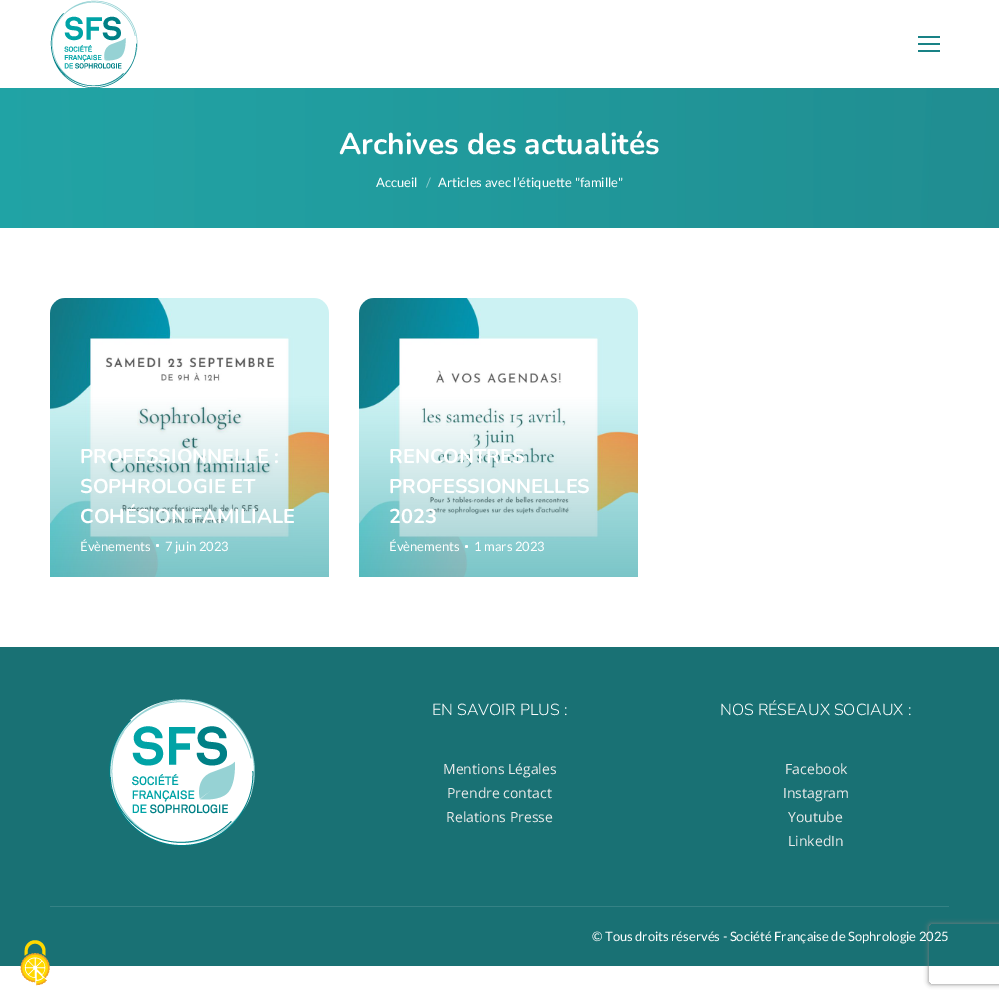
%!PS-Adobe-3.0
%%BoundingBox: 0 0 999 998
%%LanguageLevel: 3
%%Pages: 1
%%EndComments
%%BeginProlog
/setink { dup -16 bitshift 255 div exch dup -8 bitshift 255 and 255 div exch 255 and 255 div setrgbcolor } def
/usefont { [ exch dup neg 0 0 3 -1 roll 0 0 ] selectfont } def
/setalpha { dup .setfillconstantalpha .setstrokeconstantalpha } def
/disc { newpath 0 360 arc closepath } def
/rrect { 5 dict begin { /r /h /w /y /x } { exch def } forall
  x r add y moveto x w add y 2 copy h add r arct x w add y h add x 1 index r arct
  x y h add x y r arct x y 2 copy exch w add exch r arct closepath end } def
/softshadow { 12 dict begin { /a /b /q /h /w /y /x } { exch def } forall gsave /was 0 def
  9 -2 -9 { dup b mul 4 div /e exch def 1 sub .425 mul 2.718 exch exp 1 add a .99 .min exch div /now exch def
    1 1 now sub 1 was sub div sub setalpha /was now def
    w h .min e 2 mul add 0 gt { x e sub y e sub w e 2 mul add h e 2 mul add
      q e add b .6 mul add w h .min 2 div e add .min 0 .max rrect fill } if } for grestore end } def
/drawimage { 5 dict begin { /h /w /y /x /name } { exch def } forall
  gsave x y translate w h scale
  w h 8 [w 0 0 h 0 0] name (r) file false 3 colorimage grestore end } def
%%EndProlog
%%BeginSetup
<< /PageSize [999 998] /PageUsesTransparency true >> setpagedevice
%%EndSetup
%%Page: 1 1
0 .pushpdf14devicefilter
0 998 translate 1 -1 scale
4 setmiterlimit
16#FFFFFF setink
0 0 999 998 rectfill
(img1.raw) 50 0 88 88 drawimage
[
    [918 36 22 2 16#198286]
    [918 43 22 2 16#198286]
    [918 50 22 2 16#198286]
] { aload pop setink rectfill } forall
(img2.raw) 0 88 999 140 drawimage
/Nunito-Bold 30 usefont
16#FFFFFF setink
339 154 moveto (Archives des actualités) show
/Lato-Regular 13 usefont
376 187 moveto (Accueil) show
16#8FCDCE setink
426 187 moveto (/) show
16#FFFFFF setink
438 187 moveto (Articles avec l’étiquette "famille") show
(img3.raw) 50 298 279 279 drawimage
/Nunito-Bold 20 usefont
[
    [(PROFESSIONNELLE :) 80 463]
    [(SOPHROLOGIE ET) 80 493]
    [(COHÉSION FAMILIALE) 80 523]
] { aload pop moveto show } forall
/Lato-Regular 13 usefont
80 551 moveto (Évènements) show
157.5 545.5 1.5 disc fill
165 551 moveto (7 juin 2023) show
(img4.raw) 359 298 279 279 drawimage
/Nunito-Bold 20 usefont
[
    [(RENCONTRES) 389 463]
    [(PROFESSIONNELLES) 389 493]
    [(2023) 389 523]
] { aload pop moveto show } forall
/Lato-Regular 13 usefont
389 551 moveto (Évènements) show
466.5 546.5 1.5 disc fill
474 551 moveto (1 mars 2023) show
16#197174 setink
0 647 999 319 rectfill
(img5.raw) 109 699 146 147 drawimage
/Nunito-Light 16 usefont
16#FFFFFF setink
432 715 moveto (EN SAVOIR PLUS :) show
/OpenSans-Regular 14 usefont
16#EAEAEA setink
[
    [(Mentions Légales) 443 774]
    [(Prendre contact) 447 798]
    [(Relations Presse) 446 822]
] { aload pop moveto show } forall
/Nunito-Light 16 usefont
16#FFFFFF setink
720 715 moveto (NOS RÉSEAUX SOCIAUX :) show
/OpenSans-Regular 14 usefont
16#EAEAEA setink
[
    [(Facebook) 785 774]
    [(Instagram) 783 798]
    [(Youtube) 788 822]
    [(LinkedIn) 788 846]
] { aload pop moveto show } forall
16#358285 setink
50 906 899 1 rectfill
gsave
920 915 moveto 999 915 lineto 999 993 lineto 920 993 lineto closepath 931 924 moveto 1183 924 lineto 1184 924 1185 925 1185 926 curveto 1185 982 lineto 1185 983 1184 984 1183 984 curveto 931 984 lineto 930 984 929 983 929 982 curveto 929 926 lineto 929 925 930 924 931 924 curveto closepath eoclip newpath
16#808080 setink
929 924 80 60 2 2.5 1 softshadow
grestore
/Lato-Regular 13 usefont
16#FFFFFF setink
592 941 moveto (© Tous droits réservés - Société Française de Sophrologie 2025) show
(img6.raw) 20 940 30 46 drawimage
.poppdf14devicefilter showpage
%%EOF
